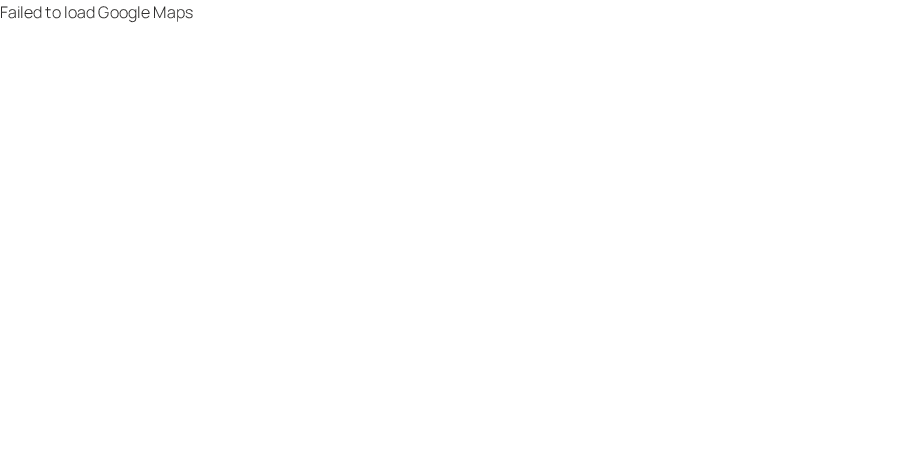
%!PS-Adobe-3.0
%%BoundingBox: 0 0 915 459
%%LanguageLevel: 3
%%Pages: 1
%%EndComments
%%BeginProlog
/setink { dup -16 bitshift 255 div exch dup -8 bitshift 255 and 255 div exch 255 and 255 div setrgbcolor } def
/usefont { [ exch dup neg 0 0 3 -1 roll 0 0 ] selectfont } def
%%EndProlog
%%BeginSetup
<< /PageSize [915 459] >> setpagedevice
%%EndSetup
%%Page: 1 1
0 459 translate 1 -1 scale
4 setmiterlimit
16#FFFFFF setink
0 0 915 459 rectfill
/Manrope-Light 16 usefont
16#2C2B2A setink
0 18 moveto (Failed to load Google Maps) show
showpage
%%EOF
